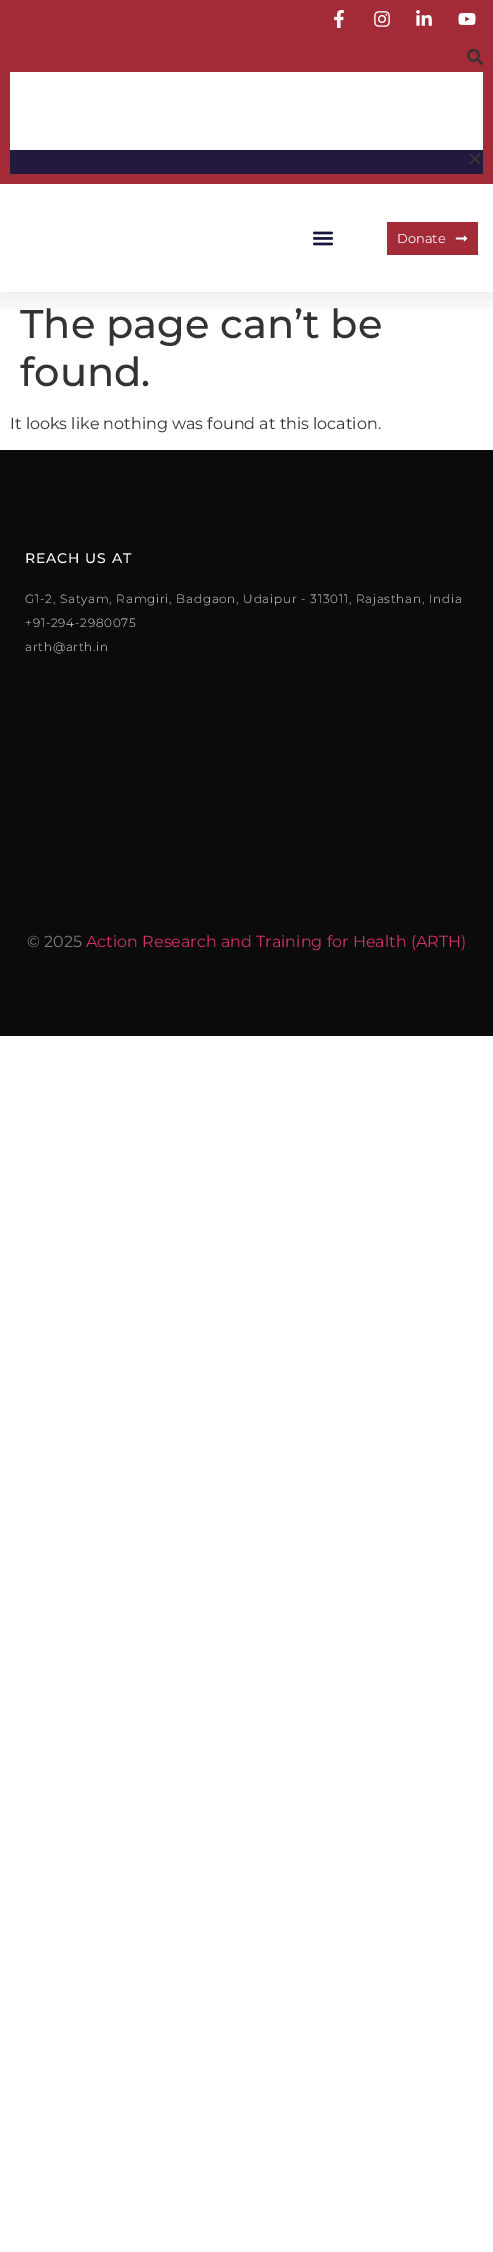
%!PS-Adobe-3.0
%%BoundingBox: 0 0 493 2252
%%LanguageLevel: 3
%%Pages: 1
%%EndComments
%%BeginProlog
/setink { dup -16 bitshift 255 div exch dup -8 bitshift 255 and 255 div exch 255 and 255 div setrgbcolor } def
/usefont { [ exch dup neg 0 0 3 -1 roll 0 0 ] selectfont } def
/setalpha { dup .setfillconstantalpha .setstrokeconstantalpha } def
/rrect { 5 dict begin { /r /h /w /y /x } { exch def } forall
  x r add y moveto x w add y 2 copy h add r arct x w add y h add x 1 index r arct
  x y h add x y r arct x y 2 copy exch w add exch r arct closepath end } def
/softshadow { 12 dict begin { /a /b /q /h /w /y /x } { exch def } forall gsave /was 0 def
  9 -2 -9 { dup b mul 4 div /e exch def 1 sub .425 mul 2.718 exch exp 1 add a .99 .min exch div /now exch def
    1 1 now sub 1 was sub div sub setalpha /was now def
    w h .min e 2 mul add 0 gt { x e sub y e sub w e 2 mul add h e 2 mul add
      q e add b .6 mul add w h .min 2 div e add .min 0 .max rrect fill } if } for grestore end } def
/drawimage { 5 dict begin { /h /w /y /x /name } { exch def } forall
  gsave x y translate w h scale
  w h 8 [w 0 0 h 0 0] name (r) file false 3 colorimage grestore end } def
%%EndProlog
%%BeginSetup
<< /PageSize [493 2252] /PageUsesTransparency true >> setpagedevice
%%EndSetup
%%Page: 1 1
0 .pushpdf14devicefilter
0 2252 translate 1 -1 scale
4 setmiterlimit
16#FFFFFF setink
0 0 493 2252 rectfill
gsave
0 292 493 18 rectclip
16#000000 setink
0 5 493 292 0 15 0.1 softshadow
grestore
16#A32A37 setink
0 0 493 184 rectfill
(img1.raw) 334 10 10 18 drawimage
(img2.raw) 374 11 16 16 drawimage
(img3.raw) 416 10 16 16 drawimage
(img4.raw) 458 13 18 12 drawimage
(img5.raw) 467 49 16 16 drawimage
16#24183E setink
10 150 473 24 rectfill
16#FFFFFF setink
10 72 473 78 rectfill
(img6.raw) 469 153 12 12 drawimage
(img7.raw) 312 231 22 15 drawimage
16#A32A37 setink
387 222 91 33 rectfill
/Montserrat-Regular 13 usefont
16#FFFFFF setink
397 243 moveto (Donate) show
(img8.raw) 455 235 13 7 drawimage
/Montserrat-Medium 40 usefont
16#333333 setink
20 338 moveto (The page can’t be) show
20 386 moveto (found.) show
/Montserrat-Regular 16 usefont
10 429 moveto (It looks like nothing was found at this location.) show
16#0B0B0B setink
0 450 493 586 rectfill
/Montserrat-Medium 14 usefont
16#FFFFFF setink
25 563 moveto 0.9 0 (REACH US AT) ashow
/Montserrat-Light 12 usefont
16#DADADA setink
25 603 moveto 0.75 0 (G1-2, Satyam, Ramgiri, Badgaon, Udaipur - 313011, Rajasthan, India) ashow
25 627 moveto 0.75 0 (+91-294-2980075) ashow
25 651 moveto 0.75 0 (arth@arth.in) ashow
/Montserrat-Regular 16 usefont
16#7A7A7A setink
27 947 moveto (© 2025) show
16#CC3366 setink
86 947 moveto (Action Research and Training for Health \(ARTH\)) show
.poppdf14devicefilter showpage
%%EOF
